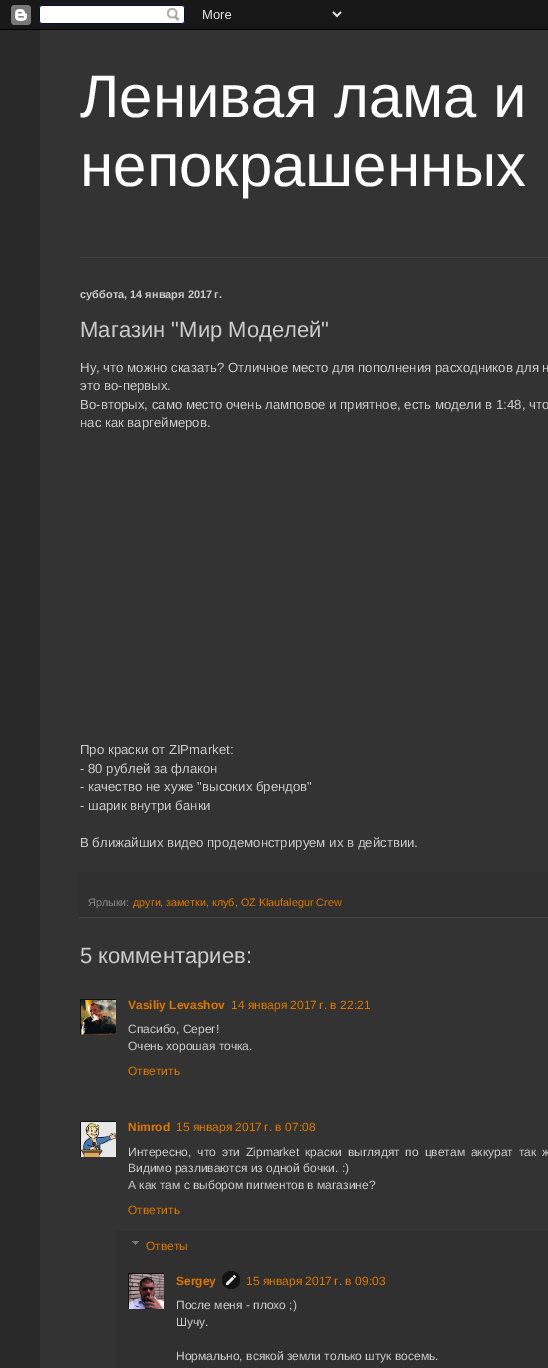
%!PS-Adobe-3.0
%%BoundingBox: 0 0 548 1368
%%LanguageLevel: 3
%%Pages: 1
%%EndComments
%%BeginProlog
/setink { dup -16 bitshift 255 div exch dup -8 bitshift 255 and 255 div exch 255 and 255 div setrgbcolor } def
/usefont { [ exch dup neg 0 0 3 -1 roll 0 0 ] selectfont } def
/drawimage { 5 dict begin { /h /w /y /x /name } { exch def } forall
  gsave x y translate w h scale
  w h 8 [w 0 0 h 0 0] name (r) file false 3 colorimage grestore end } def
%%EndProlog
%%BeginSetup
<< /PageSize [548 1368] >> setpagedevice
%%EndSetup
%%Page: 1 1
0 1368 translate 1 -1 scale
4 setmiterlimit
16#292929 setink
0 0 548 1368 rectfill
(img1.raw) 0 0 548 30 drawimage
16#333333 setink
40 30 508 1338 rectfill
/LiberationSans-Regular 60 usefont
16#FFFFFF setink
80 117 moveto (Ленивая лама и) show
80 186 moveto (непокрашенных) show
16#404040 setink
80 257 468 1 rectfill
/LiberationSans-Bold 11 usefont
16#CCCCCC setink
80 298 moveto (суббота, 14 января 2017 г.) show
/LiberationSans-Regular 22 usefont
80 337 moveto (Магазин "Мир Моделей") show
/LiberationSans-Regular 13.2 usefont
[
    [(Ну, что можно сказать? Отличное место для пополнения расходников для н) 80 372]
    [(это во-первых.) 80 390]
    [(Во-вторых, само место очень ламповое и приятное, есть модели в 1:48, что) 80 409]
    [(нас как варгеймеров.) 80 427]
    [(Про краски от ZIPmarket:) 80 754]
    [(- 80 рублей за флакон) 80 773]
    [(- качество не хуже "высоких брендов") 80 791]
    [(- шарик внутри банки) 80 810]
    [(В ближайших видео продемонстрируем их в действии.) 80 847]
] { aload pop moveto show } forall
16#303030 setink
78 872 470 45 rectfill
16#444444 setink
78 917 470 1 rectfill
/LiberationSans-Regular 10.75 usefont
16#888888 setink
88 906 moveto (Ярлыки:) show
16#DD7700 setink
133 906 moveto (други) show
16#888888 setink
160 906 moveto (,) show
16#DD7700 setink
166 906 moveto (заметки) show
16#888888 setink
206 906 moveto (,) show
16#DD7700 setink
212 906 moveto (клуб) show
16#888888 setink
235 906 moveto (,) show
16#DD7700 setink
241 906 moveto (OZ Klaufalegur Crew) show
/LiberationSans-Regular 22 usefont
16#CCCCCC setink
80 963 moveto (5 комментариев:) show
gsave
80 999 36 36 rectclip
16#111111 setink
80.5 999.5 37 37 rectstroke
grestore
(img2.raw) 81 1000 35 35 drawimage
/LiberationSans-Bold 12 usefont
16#DD7700 setink
128 1009 moveto (Vasiliy Levashov) show
/LiberationSans-Regular 12 usefont
231 1009 moveto (14 января 2017 г. в 22:21) show
16#CCCCCC setink
128 1033 moveto (Спасибо, Серег!) show
128 1050 moveto (Очень хорошая точка.) show
16#DD7700 setink
128 1075 moveto (Ответить) show
gsave
80 1121 36 36 rectclip
16#111111 setink
80.5 1121.5 37 37 rectstroke
grestore
(img3.raw) 81 1122 35 35 drawimage
/LiberationSans-Bold 12 usefont
128 1131 moveto (Nimrod) show
/LiberationSans-Regular 12 usefont
176 1131 moveto (15 января 2017 г. в 07:08) show
16#CCCCCC setink
128 1156 moveto 2.6 0 32 (Интересно, что эти Zipmarket краски выглядят по цветам аккурат так ж) widthshow
128 1172 moveto (Видимо разливаются из одной бочки. :\)) show
128 1189 moveto (А как там с выбором пигментов в магазине?) show
16#DD7700 setink
128 1214 moveto (Ответить) show
16#303030 setink
116 1231 432 137 rectfill
(img4.raw) 132 1241 7 4 drawimage
16#DD7700 setink
146 1250 moveto (Ответы) show
gsave
128 1273 36 36 rectclip
16#111111 setink
128.5 1273.5 37 37 rectstroke
grestore
(img5.raw) 129 1274 35 35 drawimage
/LiberationSans-Bold 12 usefont
176 1285 moveto (Sergey) show
(img6.raw) 222 1271 18 18 drawimage
/LiberationSans-Regular 12 usefont
246 1285 moveto (15 января 2017 г. в 09:03) show
16#CCCCCC setink
[
    [(После меня - плохо ;\)) 176 1309]
    [(Шучу.) 176 1326]
    [(Нормально, всякой земли только штук восемь.) 176 1360]
] { aload pop moveto show } forall
showpage
%%EOF
